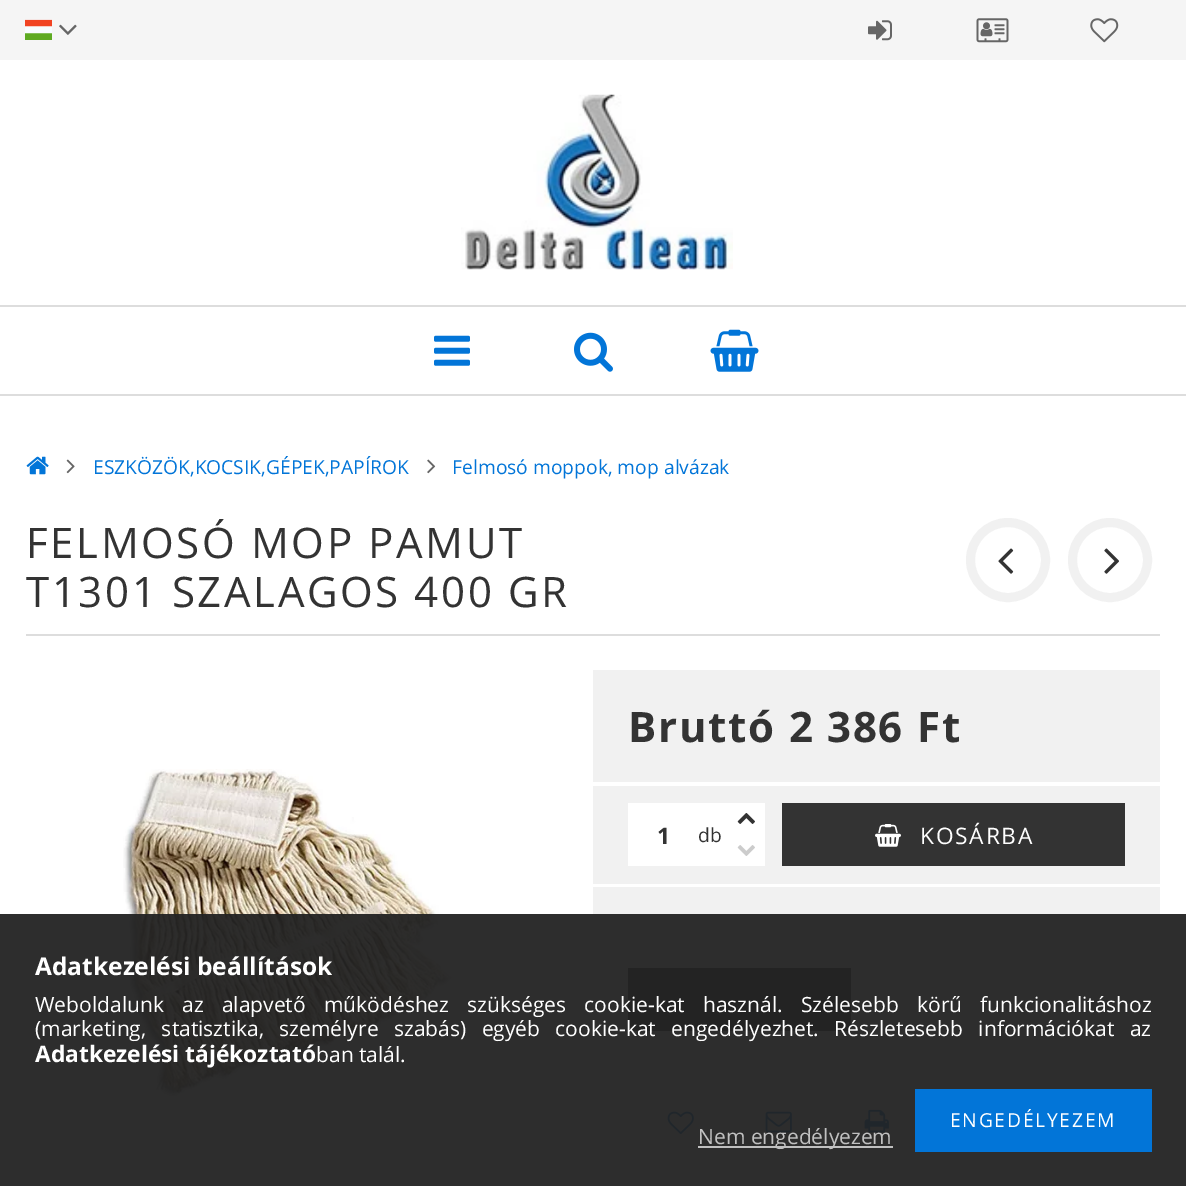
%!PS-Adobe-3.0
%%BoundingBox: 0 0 1186 1186
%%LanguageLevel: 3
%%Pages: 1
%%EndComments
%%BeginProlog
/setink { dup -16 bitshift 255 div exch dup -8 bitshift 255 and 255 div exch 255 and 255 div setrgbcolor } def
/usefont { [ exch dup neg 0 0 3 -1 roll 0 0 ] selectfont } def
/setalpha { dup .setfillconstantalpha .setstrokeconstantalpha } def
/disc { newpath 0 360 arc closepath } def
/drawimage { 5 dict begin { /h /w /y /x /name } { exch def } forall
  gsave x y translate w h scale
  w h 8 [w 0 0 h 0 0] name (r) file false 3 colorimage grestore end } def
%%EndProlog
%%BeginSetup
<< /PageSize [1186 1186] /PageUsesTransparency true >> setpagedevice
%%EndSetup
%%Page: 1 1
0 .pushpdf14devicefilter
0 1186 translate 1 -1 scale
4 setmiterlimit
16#FFFFFF setink
0 0 1186 1186 rectfill
16#F5F5F5 setink
0 0 1186 60 rectfill
(img1.raw) 25 19 27 21 drawimage
(img2.raw) 59 24 18 11 drawimage
(img3.raw) 868 20 24 21 drawimage
(img4.raw) 976 18 33 25 drawimage
(img5.raw) 1090 18 29 25 drawimage
(img6.raw) 461 94 272 176 drawimage
16#DDDDDD setink
0 305 1186 2 rectfill
0 394 1186 2 rectfill
(img7.raw) 434 335 36 31 drawimage
(img8.raw) 574 332 39 40 drawimage
(img9.raw) 710 329 49 43 drawimage
(img10.raw) 26 456 23 19 drawimage
(img11.raw) 66 459 9 15 drawimage
/OpenSans-Regular 19.25 usefont
16#0275D8 setink
93 474 moveto (ESZKÖZÖK,KOCSIK,GÉPEK,PAPÍROK) show
(img12.raw) 427 459 9 15 drawimage
452 474 moveto (Felmosó moppok, mop alvázak) show
16#DDDDDD setink
26 634 1134 2 rectfill
/OpenSans-Regular 42 usefont
16#333333 setink
26 558 moveto 2.6 0 (FELMOSÓ MOP PAMUT) ashow
26 607 moveto 2.6 0 (T1301 SZALAGOS 400 GR) ashow
16#F1F1F1 setink
9 setlinewidth
1008 560 37.5 disc stroke
(img13.raw) 998 548 16 26 drawimage
1110 560 37.5 disc stroke
(img14.raw) 1104 548 15 26 drawimage
(img15.raw) 123 769 330 334 drawimage
593 670 567 112 rectfill
/OpenSans-Bold 42 usefont
16#333333 setink
628 742 moveto 1.75 0 (Bruttó 2 386 Ft) ashow
16#F1F1F1 setink
593 786 567 98 rectfill
16#FFFFFF setink
628 803 102 63 rectfill
/OpenSans-Bold 22.75 usefont
16#333333 setink
657 844 moveto (1) show
/OpenSans-Regular 19.25 usefont
698 842 moveto (db) show
16#FFFFFF setink
730 803 35 63 rectfill
(img16.raw) 737 813 18 11 drawimage
(img17.raw) 737 845 18 11 drawimage
16#333333 setink
782 803 343 63 rectfill
(img18.raw) 875 824 26 23 drawimage
/OpenSans-Regular 22.75 usefont
16#FFFFFF setink
920 844 moveto 1.75 0 (KOSÁRBA) ashow
16#F1F1F1 setink
593 887 567 161 rectfill
16#333333 setink
628 968 223 63 rectfill
16#F1F1F1 setink
680.5 1121.5 34 disc stroke
(img19.raw) 667 1111 27 24 drawimage
778.5 1121.5 34 disc stroke
(img20.raw) 765 1111 27 22 drawimage
876.5 1121.5 34 disc stroke
(img21.raw) 864 1109 25 24 drawimage
974.5 1121.5 34 disc stroke
1072.5 1121.5 34 disc stroke
0.95 setalpha
16#222222 setink
0 914 1186 272 rectfill
/OpenSans-Bold 24.5 usefont
1 setalpha
16#FFFFFF setink
35 975 moveto (Adatkezelési beállítások) show
/OpenSans-Regular 21 usefont
35 1012 moveto 12.75 0 32 (Weboldalunk az alapvető működéshez szükséges cookie-kat használ. Szélesebb körű funkcionalitáshoz) widthshow
35 1036 moveto 10 0 32 (\(marketing, statisztika, személyre szabás\) egyéb cookie-kat engedélyezhet. Részletesebb információkat az) widthshow
/OpenSans-Bold 22.75 usefont
35 1062 moveto (Adatkezelési tájékoztató) show
/OpenSans-Regular 21 usefont
316 1062 moveto (ban talál.) show
16#0275D8 setink
915 1089 237 63 rectfill
/OpenSans-Regular 19.25 usefont
16#FFFFFF setink
950 1127 moveto 1.75 0 (ENGEDÉLYEZEM) ashow
16#C0C0C0 setink
698 1146 195 2 rectfill
/OpenSans-Regular 21 usefont
16#C1C1C1 setink
698 1144 moveto (Nem engedélyezem) show
.poppdf14devicefilter showpage
%%EOF
